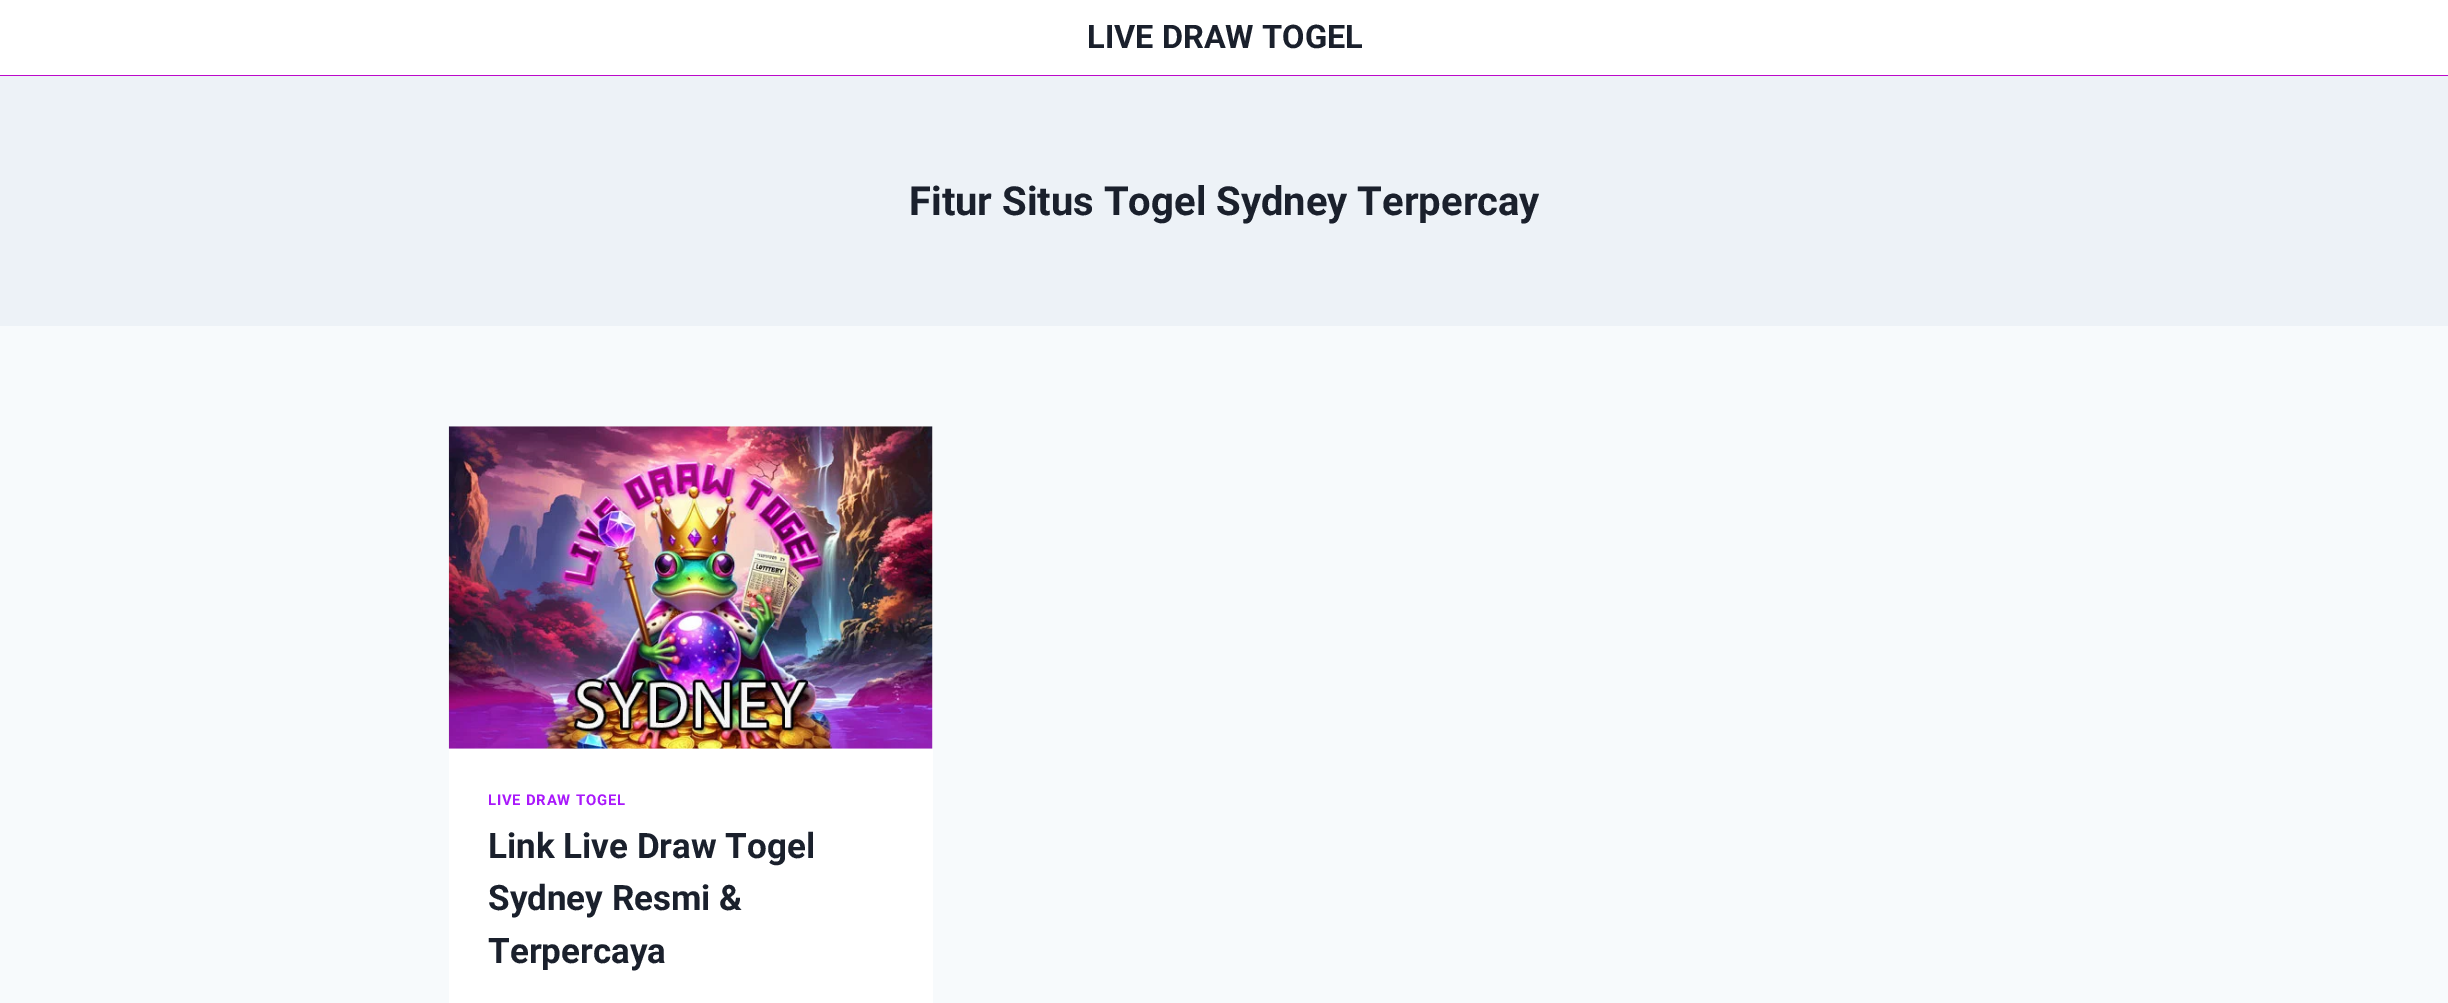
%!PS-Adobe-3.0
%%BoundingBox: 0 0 2448 1003
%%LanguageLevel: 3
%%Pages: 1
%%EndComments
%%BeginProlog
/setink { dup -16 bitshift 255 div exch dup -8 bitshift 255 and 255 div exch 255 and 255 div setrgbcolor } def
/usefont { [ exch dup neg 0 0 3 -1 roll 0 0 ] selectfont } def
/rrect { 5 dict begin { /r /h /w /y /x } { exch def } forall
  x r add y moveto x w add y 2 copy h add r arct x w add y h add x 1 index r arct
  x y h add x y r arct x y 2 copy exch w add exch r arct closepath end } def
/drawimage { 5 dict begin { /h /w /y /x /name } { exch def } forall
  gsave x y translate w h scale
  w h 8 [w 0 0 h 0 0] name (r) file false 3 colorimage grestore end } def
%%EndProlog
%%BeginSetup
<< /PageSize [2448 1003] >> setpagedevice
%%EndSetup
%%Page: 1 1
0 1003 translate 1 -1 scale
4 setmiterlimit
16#F7FAFC setink
0 0 2448 1003 rectfill
16#FFFFFF setink
0 0 2448 75 rectfill
16#BC08CA setink
0 75 2448 1 rectfill
/Roboto-Bold 32.5 usefont
16#1A202C setink
1087 48 moveto (LIVE DRAW TOGEL) show
16#EDF2F7 setink
0 76 2448 250 rectfill
/Roboto-Bold 40 usefont
16#1A202C setink
909 215 moveto (Fitur Situs Togel Sydney Terpercay) show
16#FFFFFF setink
449 426 484 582 5 rrect fill
(img1.raw) 448 426 485 323 drawimage
/Roboto-Bold 14.9 usefont
16#A918FB setink
488 805 moveto 0.75 0 (LIVE DRAW TOGEL) ashow
/Roboto-Bold 35 usefont
16#1A202C setink
[
    [(Link Live Draw Togel) 488 858]
    [(Sydney Resmi &) 488 910]
    [(Terpercaya) 488 963]
] { aload pop moveto show } forall
showpage
%%EOF
